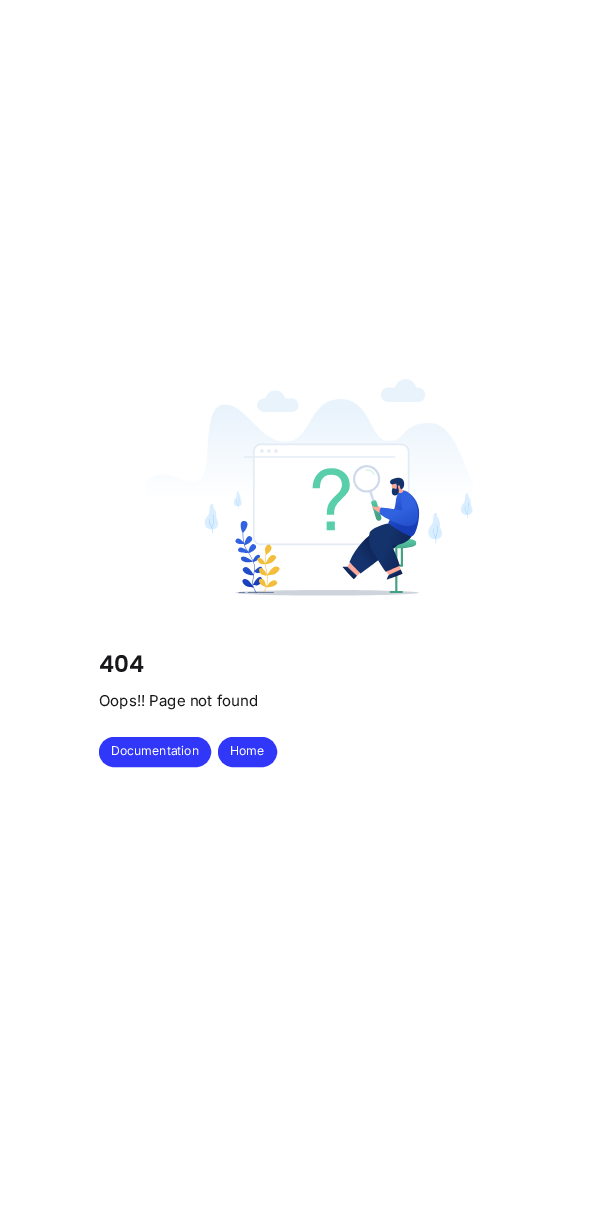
%!PS-Adobe-3.0
%%BoundingBox: 0 0 609 1211
%%LanguageLevel: 3
%%Pages: 1
%%EndComments
%%BeginProlog
/setink { dup -16 bitshift 255 div exch dup -8 bitshift 255 and 255 div exch 255 and 255 div setrgbcolor } def
/usefont { [ exch dup neg 0 0 3 -1 roll 0 0 ] selectfont } def
/rrect { 5 dict begin { /r /h /w /y /x } { exch def } forall
  x r add y moveto x w add y 2 copy h add r arct x w add y h add x 1 index r arct
  x y h add x y r arct x y 2 copy exch w add exch r arct closepath end } def
/drawimage { 5 dict begin { /h /w /y /x /name } { exch def } forall
  gsave x y translate w h scale
  w h 8 [w 0 0 h 0 0] name (r) file false 3 colorimage grestore end } def
%%EndProlog
%%BeginSetup
<< /PageSize [609 1211] >> setpagedevice
%%EndSetup
%%Page: 1 1
0 1211 translate 1 -1 scale
4 setmiterlimit
16#FFFFFF setink
0 0 609 1211 rectfill
(img1.raw) 146 379 327 217 drawimage
/Poppins-SemiBold 23 usefont
16#18181B setink
99 672 moveto (404) show
/Inter-Regular 15 usefont
99 706 moveto (Oops!! Page not found) show
16#3037F8 setink
99.5 737.5 111 29 14.5 rrect gsave fill grestore
stroke
/Inter-Regular 12.25 usefont
16#FFFFFF setink
111 755 moveto (Documentation) show
16#3037F8 setink
218.5 737.5 58 29 14.5 rrect gsave fill grestore
stroke
16#FFFFFF setink
230 755 moveto (Home) show
showpage
%%EOF
